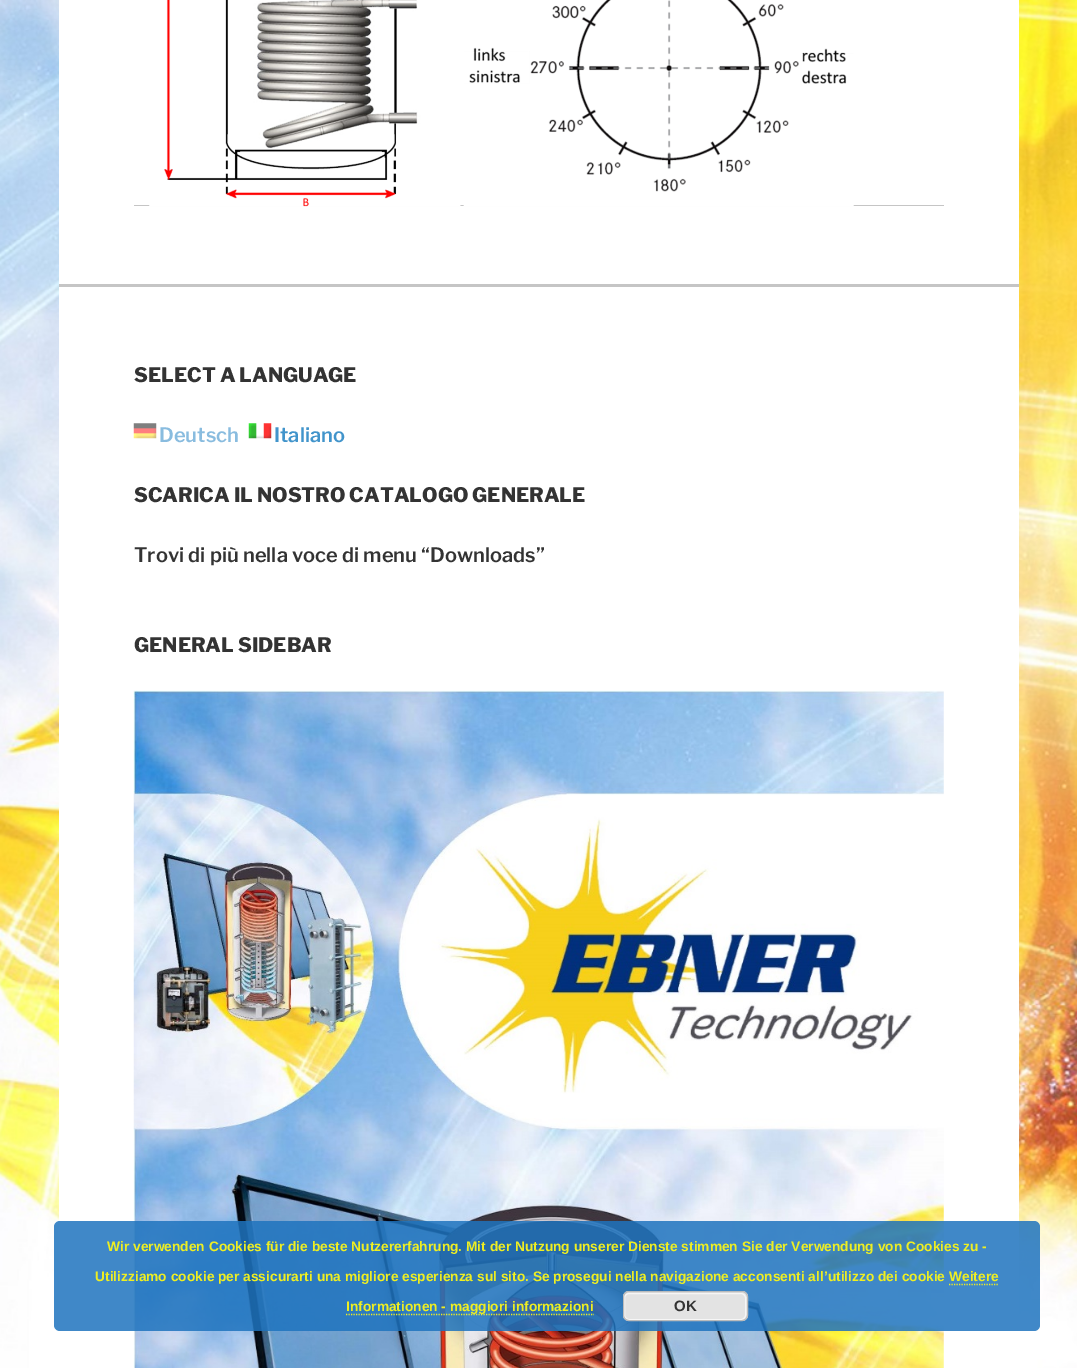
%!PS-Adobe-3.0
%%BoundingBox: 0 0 1077 1368
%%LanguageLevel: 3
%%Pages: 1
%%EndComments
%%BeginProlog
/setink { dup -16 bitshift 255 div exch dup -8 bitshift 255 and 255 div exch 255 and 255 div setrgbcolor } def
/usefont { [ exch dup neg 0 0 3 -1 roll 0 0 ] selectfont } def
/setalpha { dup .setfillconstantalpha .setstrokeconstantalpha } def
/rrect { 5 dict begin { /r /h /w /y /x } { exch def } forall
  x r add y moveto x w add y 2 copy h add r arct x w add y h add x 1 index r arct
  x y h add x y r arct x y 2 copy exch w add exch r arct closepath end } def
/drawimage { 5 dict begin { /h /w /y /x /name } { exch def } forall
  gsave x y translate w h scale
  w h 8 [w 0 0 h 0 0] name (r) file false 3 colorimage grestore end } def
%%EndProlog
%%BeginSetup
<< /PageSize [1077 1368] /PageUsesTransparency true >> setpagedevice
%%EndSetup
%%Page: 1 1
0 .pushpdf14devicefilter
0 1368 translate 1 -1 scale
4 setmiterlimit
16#FFFFFF setink
0 0 1077 1368 rectfill
(img1.raw) 0 0 1077 1368 drawimage
59 0 960 1368 rectfill
16#C5C5C5 setink
134 205 810 1 rectfill
(img2.raw) 149 0 705 207 drawimage
59 284 960 3 rectfill
/LibreFranklin-ExtraBold 20 usefont
16#333333 setink
134 382 moveto (SELECT A LANGUAGE) show
(img3.raw) 133 423 24 16 drawimage
/LibreFranklin-SemiBold 20 usefont
16#89BCDF setink
159 442 moveto (Deutsch) show
(img4.raw) 248 423 24 16 drawimage
16#4194CB setink
274 442 moveto (Italiano) show
/LibreFranklin-ExtraBold 20 usefont
16#333333 setink
134 502 moveto (SCARICA IL NOSTRO CATALOGO GENERALE) show
/LibreFranklin-SemiBold 20 usefont
134 562 moveto (Trovi di più nella voce di menu “Downloads”) show
/LibreFranklin-ExtraBold 20 usefont
134 652 moveto (GENERAL SIDEBAR) show
(img5.raw) 133 690 811 678 drawimage
0.85 setalpha
16#1E73BE setink
54 1221 986 110 6 rrect fill
/LiberationSans-Bold 13.75 usefont
1 setalpha
16#EEEE22 setink
107 1251 moveto (Wir verwenden Cookies für die beste Nutzererfahrung. Mit der Nutzung unserer Dienste stimmen Sie der Verwendung von Cookies zu -) show
95 1281 moveto (Utilizziamo cookie per assicurarti una migliore esperienza sul sito. Se prosegui nella navigazione acconsenti all’utilizzo dei cookie Weitere) show
1.2 setlinewidth
[1.25 1.25] 0 setdash
346 1314.5 moveto 594 1314.5 lineto stroke
346 1311 moveto (Informationen - maggiori informazioni) show
949 1284.5 moveto 999 1284.5 lineto stroke
16#E3E3E3 setink
623 1291 125 30 6 rrect fill
16#F6F6F6 setink
1 setlinewidth
[] 0 setdash
624.5 1293.5 121 26 4.5 rrect stroke
16#BBBBBB setink
623.5 1291.5 124 29 5.5 rrect stroke
/LiberationSans-Bold 15 usefont
16#333333 setink
674 1311 moveto (OK) show
.poppdf14devicefilter showpage
%%EOF
